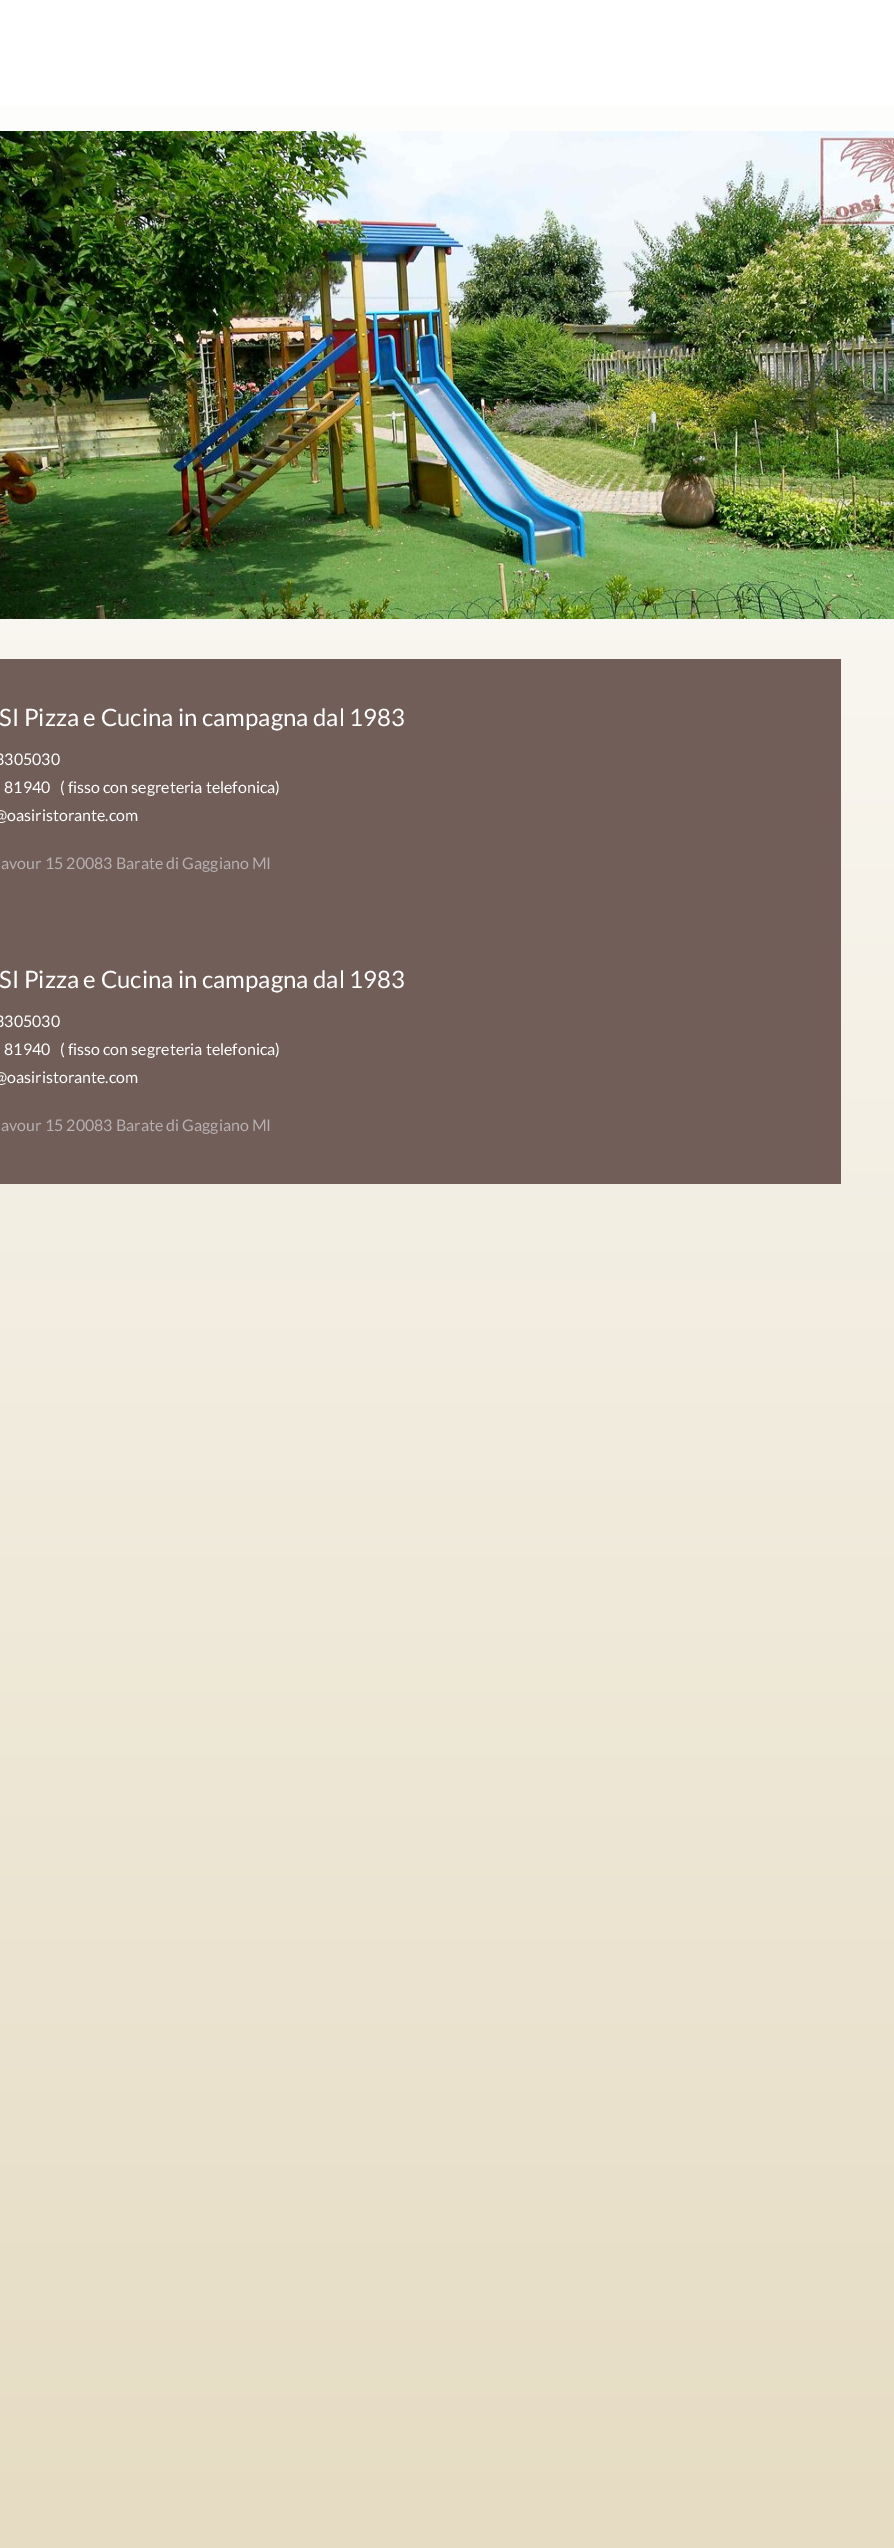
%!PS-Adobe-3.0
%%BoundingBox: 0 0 894 2548
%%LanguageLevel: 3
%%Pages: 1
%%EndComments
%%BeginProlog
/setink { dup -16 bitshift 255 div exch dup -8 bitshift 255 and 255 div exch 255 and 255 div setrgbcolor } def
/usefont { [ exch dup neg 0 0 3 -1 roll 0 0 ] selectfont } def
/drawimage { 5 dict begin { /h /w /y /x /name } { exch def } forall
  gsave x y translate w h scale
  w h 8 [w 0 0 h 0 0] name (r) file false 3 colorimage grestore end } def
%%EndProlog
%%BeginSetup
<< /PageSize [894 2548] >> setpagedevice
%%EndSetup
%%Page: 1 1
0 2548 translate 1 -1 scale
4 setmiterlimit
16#FFFFFF setink
0 0 894 2548 rectfill
gsave 0 106 moveto 894 106 lineto 894 2548 lineto 0 2548 lineto closepath clip newpath
<< /ShadingType 2 /ColorSpace /DeviceRGB /Coords [447 0 447 2548] /Extend [true true] /Function << /FunctionType 2 /Domain [0 1] /C0 [1 1 1] /C1 [0.902 0.863 0.765] /N 1 >> >> shfill grestore
(img1.raw) 0 131 894 488 drawimage
16#715E58 setink
0 659 841 525 rectfill
/Lato-Regular 24 usefont
16#FFFFFF setink
-1 726 moveto (SI Pizza e Cucina in campagna dal 1983) show
/Lato-Regular 16 usefont
[
    [(3305030) -5 765]
    [(81940   \( fisso con segreteria telefonica\)) 4 793]
    [(@oasiristorante.com) -6 821]
] { aload pop moveto show } forall
16#B6B0B1 setink
1 869 moveto (avour 15 20083 Barate di Gaggiano MI) show
/Lato-Regular 24 usefont
16#FFFFFF setink
-1 988 moveto (SI Pizza e Cucina in campagna dal 1983) show
/Lato-Regular 16 usefont
[
    [(3305030) -5 1027]
    [(81940   \( fisso con segreteria telefonica\)) 4 1055]
    [(@oasiristorante.com) -6 1083]
] { aload pop moveto show } forall
16#B6B0B1 setink
1 1131 moveto (avour 15 20083 Barate di Gaggiano MI) show
showpage
%%EOF
